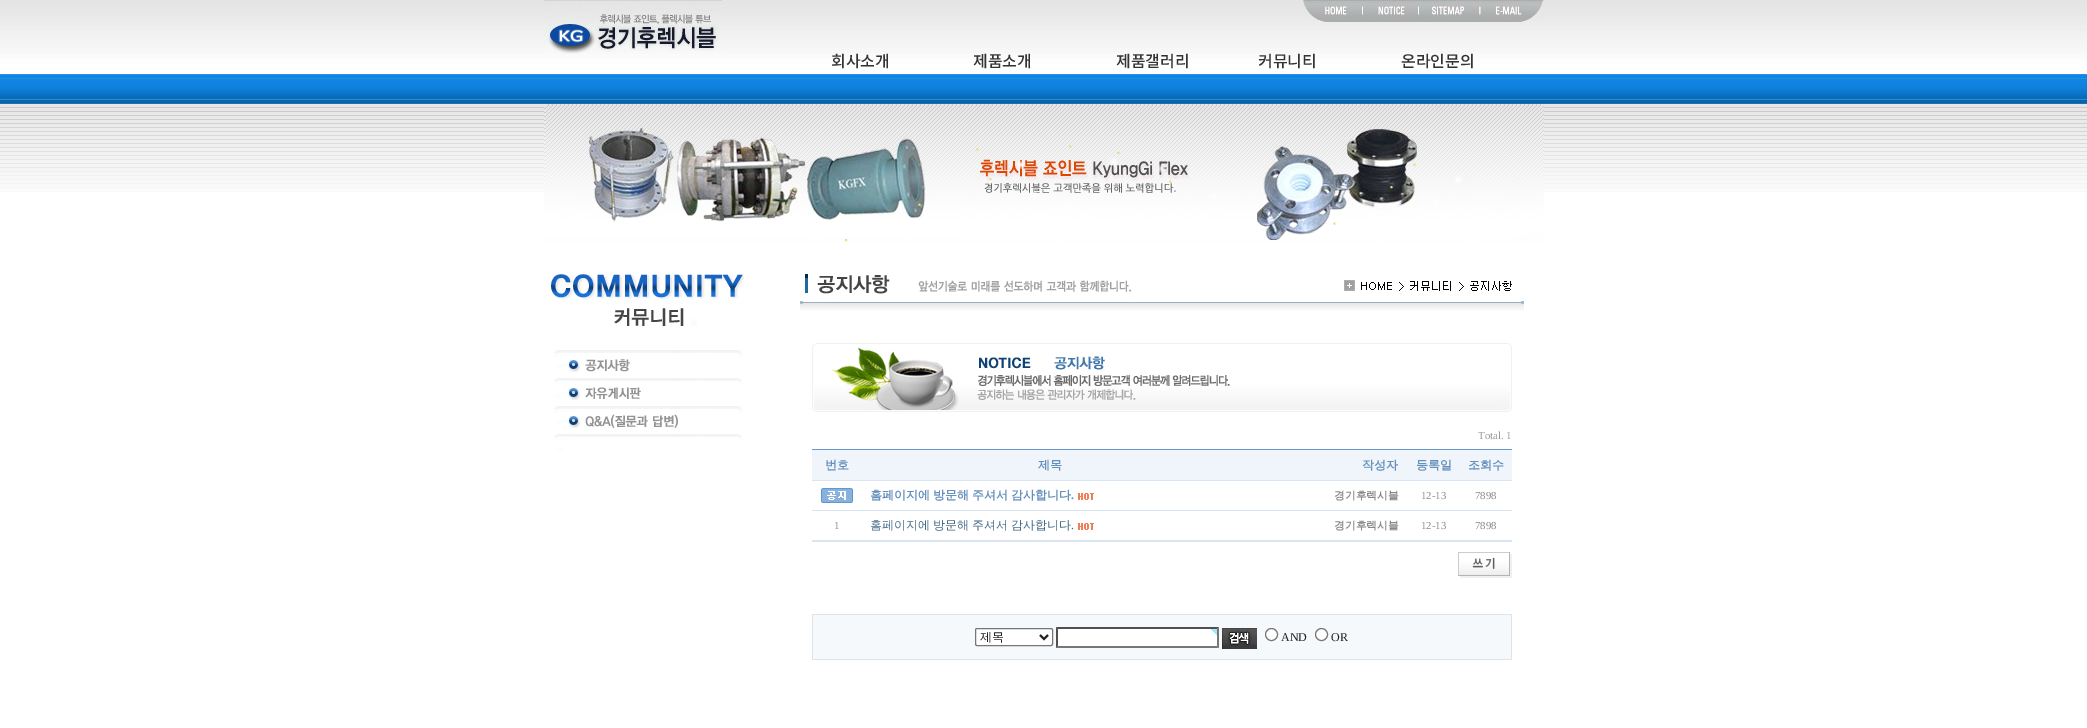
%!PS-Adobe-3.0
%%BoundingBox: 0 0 2087 728
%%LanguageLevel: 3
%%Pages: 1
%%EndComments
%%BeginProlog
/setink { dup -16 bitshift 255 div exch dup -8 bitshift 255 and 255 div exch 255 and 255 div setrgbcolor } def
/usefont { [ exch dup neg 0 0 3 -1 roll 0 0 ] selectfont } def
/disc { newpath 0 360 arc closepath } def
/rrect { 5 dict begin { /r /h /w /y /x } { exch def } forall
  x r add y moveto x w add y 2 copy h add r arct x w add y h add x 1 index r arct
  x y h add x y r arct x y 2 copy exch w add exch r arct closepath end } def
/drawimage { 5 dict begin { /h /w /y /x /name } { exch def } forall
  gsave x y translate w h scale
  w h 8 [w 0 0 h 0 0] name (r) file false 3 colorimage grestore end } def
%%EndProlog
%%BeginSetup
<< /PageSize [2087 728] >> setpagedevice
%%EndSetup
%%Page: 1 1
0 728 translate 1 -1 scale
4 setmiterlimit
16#FFFFFF setink
0 0 2087 728 rectfill
(img1.raw) 0 0 2087 104 drawimage
(img2.raw) 544 0 178 54 drawimage
(img3.raw) 1303 0 241 22 drawimage
/NotoSansKR-Medium 16 usefont
16#333333 setink
[
    [(회사소개) 831 67]
    [(제품소개) 973 67]
    [(제품갤러리) 1116 67]
    [(커뮤니티) 1258 67]
    [(온라인문의) 1401 67]
] { aload pop moveto show } forall
(img4.raw) 0 104 2087 88 drawimage
(img5.raw) 544 104 1000 138 drawimage
(img6.raw) 551 274 193 26 drawimage
(img7.raw) 614 308 83 18 drawimage
(img8.raw) 554 350 188 22 drawimage
(img9.raw) 554 378 188 22 drawimage
(img10.raw) 554 406 188 22 drawimage
(img11.raw) 554 434 188 18 drawimage
(img12.raw) 800 274 725 37 drawimage
(img13.raw) 812 343 700 69 drawimage
/LiberationSerif-Regular 10.75 usefont
16#999999 setink
1478 439 moveto (Total. 1) show
16#6699CC setink
812 449 700 1 rectfill
16#EFF5FA setink
812 450 700 30 rectfill
/WenQuanYiZenHei-Bold 12 usefont
16#6490BC setink
[
    [(번호) 825 469]
    [(제목) 1038 469]
    [(작성자) 1362 469]
    [(등록일) 1416 469]
    [(조회수) 1468 469]
] { aload pop moveto show } forall
16#D9E5F2 setink
812 480 700 1 rectfill
(img14.raw) 821 488 32 15 drawimage
16#6490BC setink
870 499 moveto -0.5 0 32 (홈페이지에 방문해 주셔서 감사합니다) widthshow
/LiberationSerif-Bold 12 usefont
1071 499 moveto (.) show
(img15.raw) 1078 493 16 7 drawimage
/WenQuanYiZenHei-Bold 10.75 usefont
16#888888 setink
1334 499 moveto (경기후렉시블) show
/LiberationSerif-Regular 10.75 usefont
1421 499 moveto (12-13) show
1475 499 moveto (7898) show
16#D9E5F2 setink
812 510 700 1 rectfill
16#888888 setink
834 529 moveto (1) show
/WenQuanYiZenHei-Medium 12 usefont
16#466C8A setink
870 529 moveto -0.5 0 32 (홈페이지에 방문해 주셔서 감사합니다) widthshow
/LiberationSerif-Regular 12 usefont
1071 529 moveto (.) show
(img15.raw) 1078 523 16 7 drawimage
/WenQuanYiZenHei-Bold 10.75 usefont
16#888888 setink
1334 529 moveto (경기후렉시블) show
/LiberationSerif-Regular 10.75 usefont
1421 529 moveto (12-13) show
1475 529 moveto (7898) show
16#D9E5F2 setink
812 540 700 2 rectfill
(img16.raw) 1458 552 54 26 drawimage
16#DFE4E9 setink
812 614 700 46 rectfill
16#F6F9FB setink
813 615 698 44 rectfill
16#FFFFFF setink
975.5 628.5 77 17 1.5 rrect gsave fill grestore
16#767676 setink
stroke
16#222222 setink
2 setlinewidth
1040 635 moveto 1044 639 lineto 1048 635 lineto stroke
/WenQuanYiZenHei-Medium 12 usefont
980 641 moveto (제목) show
16#FFFFFF setink
1056 627 163 21 rectfill
(img17.raw) 1211 629 6 6 drawimage
16#4F4F4F setink
1056 627 moveto 1219 627 lineto 1217 629 lineto 1058 629 lineto closepath fill
16#767676 setink
1219 627 moveto 1219 648 lineto 1217 646 lineto 1217 629 lineto closepath fill
1219 648 moveto 1056 648 lineto 1058 646 lineto 1217 646 lineto closepath fill
16#4F4F4F setink
1056 648 moveto 1056 627 lineto 1058 629 lineto 1058 646 lineto closepath fill
(img18.raw) 1222 628 35 21 drawimage
16#FFFFFF setink
1271.5 634.5 6 disc gsave fill grestore
16#767676 setink
1 setlinewidth
stroke
/LiberationSerif-Regular 12 usefont
16#222222 setink
1281 641 moveto (AND) show
16#FFFFFF setink
1321.5 634.5 6 disc gsave fill grestore
16#767676 setink
stroke
16#222222 setink
1331 641 moveto (OR) show
showpage
%%EOF
